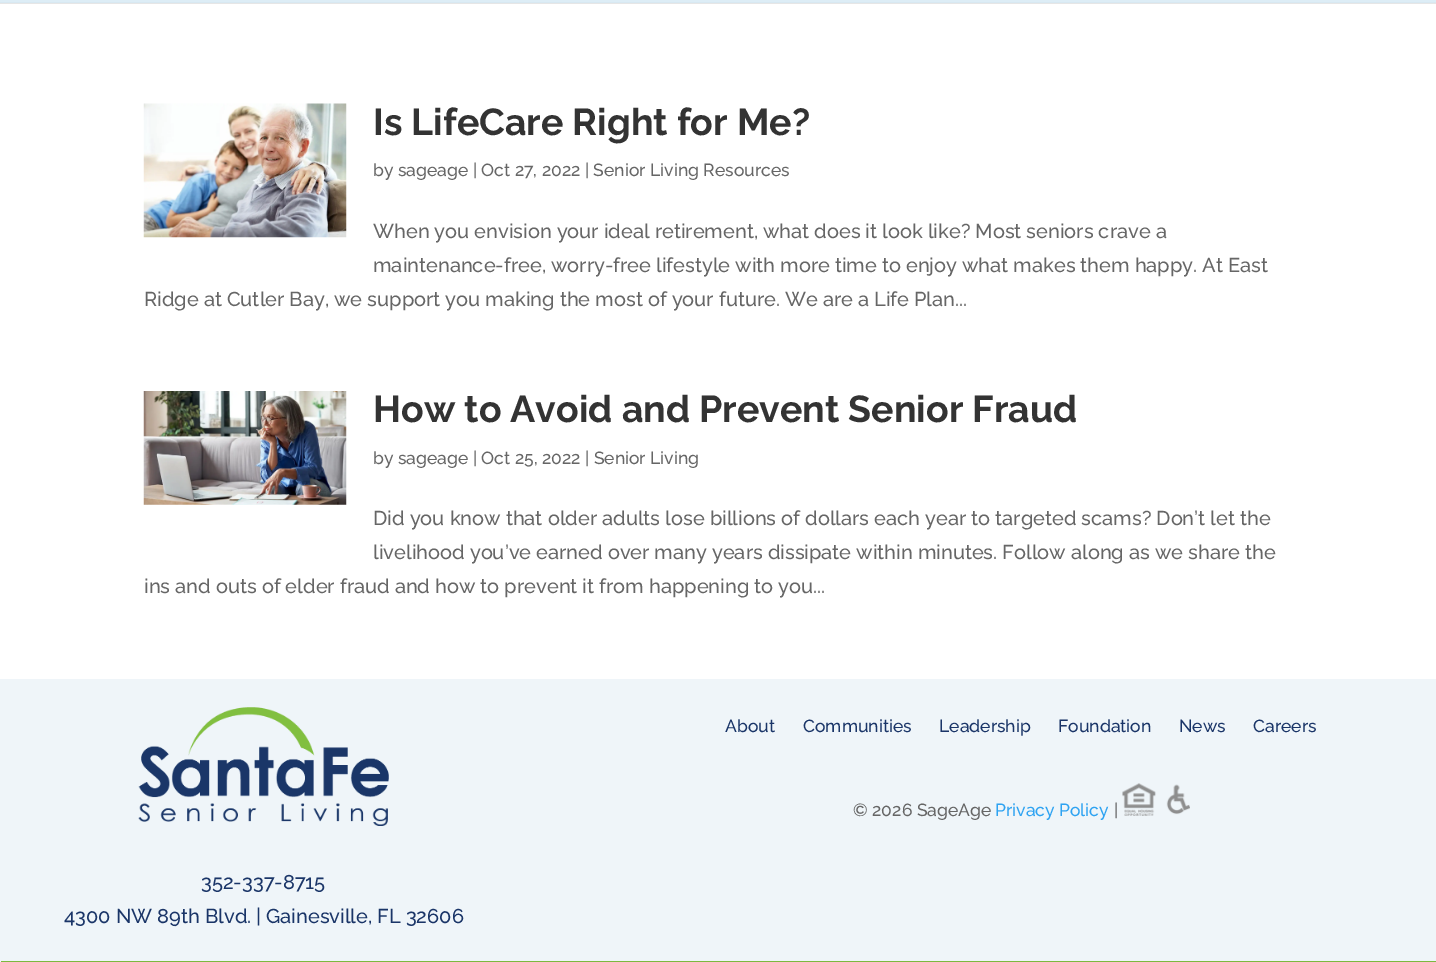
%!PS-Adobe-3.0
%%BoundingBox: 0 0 1436 962
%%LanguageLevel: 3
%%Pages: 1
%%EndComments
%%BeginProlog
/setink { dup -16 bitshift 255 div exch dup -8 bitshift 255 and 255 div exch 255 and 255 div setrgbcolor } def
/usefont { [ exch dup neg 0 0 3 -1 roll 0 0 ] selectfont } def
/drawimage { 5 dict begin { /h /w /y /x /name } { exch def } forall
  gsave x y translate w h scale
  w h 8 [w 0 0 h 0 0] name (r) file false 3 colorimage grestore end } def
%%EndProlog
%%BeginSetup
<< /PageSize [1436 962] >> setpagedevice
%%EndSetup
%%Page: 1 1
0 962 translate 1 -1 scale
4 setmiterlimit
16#FFFFFF setink
0 0 1436 962 rectfill
[
    [0 0 1436 2 16#DDEDF6]
    [0 3 1436 1 16#E6E6E6]
    [0 2 1436 1 16#D8E8F1]
    [0 679 1436 283 16#EFF5F9]
    [1 961 1435 1 16#7DB83E]
] { aload pop setink rectfill } forall
(img1.raw) 143 103 204 135 drawimage
/Raleway-Bold 37.5 usefont
16#333333 setink
373 135 moveto (Is LifeCare Right for Me?) show
/Raleway-Medium 17.5 usefont
16#666666 setink
373 176 moveto (by sageage | Oct 27, 2022 | Senior Living Resources) show
/Raleway-Medium 20 usefont
[
    [(When you envision your ideal retirement, what does it look like? Most seniors crave a) 373 238]
    [(maintenance-free, worry-free lifestyle with more time to enjoy what makes them happy. At East) 373 272]
    [(Ridge at Cutler Bay, we support you making the most of your future. We are a Life Plan...) 144 306]
] { aload pop moveto show } forall
(img2.raw) 143 391 204 114 drawimage
/Raleway-Bold 37.5 usefont
16#333333 setink
373 422 moveto (How to Avoid and Prevent Senior Fraud) show
/Raleway-Medium 17.5 usefont
16#666666 setink
373 464 moveto (by sageage | Oct 25, 2022 | Senior Living) show
/Raleway-Medium 20 usefont
[
    [(Did you know that older adults lose billions of dollars each year to targeted scams? Don’t let the) 373 525]
    [(livelihood you’ve earned over many years dissipate within minutes. Follow along as we share the) 373 559]
    [(ins and outs of elder fraud and how to prevent it from happening to you...) 144 593]
] { aload pop moveto show } forall
/Raleway-Medium 17.5 usefont
16#1A3568 setink
[
    [(About) 725 732]
    [(Communities) 803 732]
    [(Leadership) 939 732]
    [(Foundation) 1058 732]
    [(News) 1179 732]
    [(Careers) 1253 732]
] { aload pop moveto show } forall
16#666666 setink
853 816 moveto (© 2026 SageAge) show
16#2EA3F2 setink
995 816 moveto (Privacy Policy) show
16#666666 setink
1114 816 moveto (|) show
(img3.raw) 1122 783 68 33 drawimage
(img4.raw) 138 707 251 119 drawimage
/Raleway-Medium 20 usefont
16#1A3568 setink
201 889 moveto (352-337-8715) show
64 923 moveto (4300 NW 89th Blvd. | Gainesville, FL 32606) show
showpage
%%EOF
